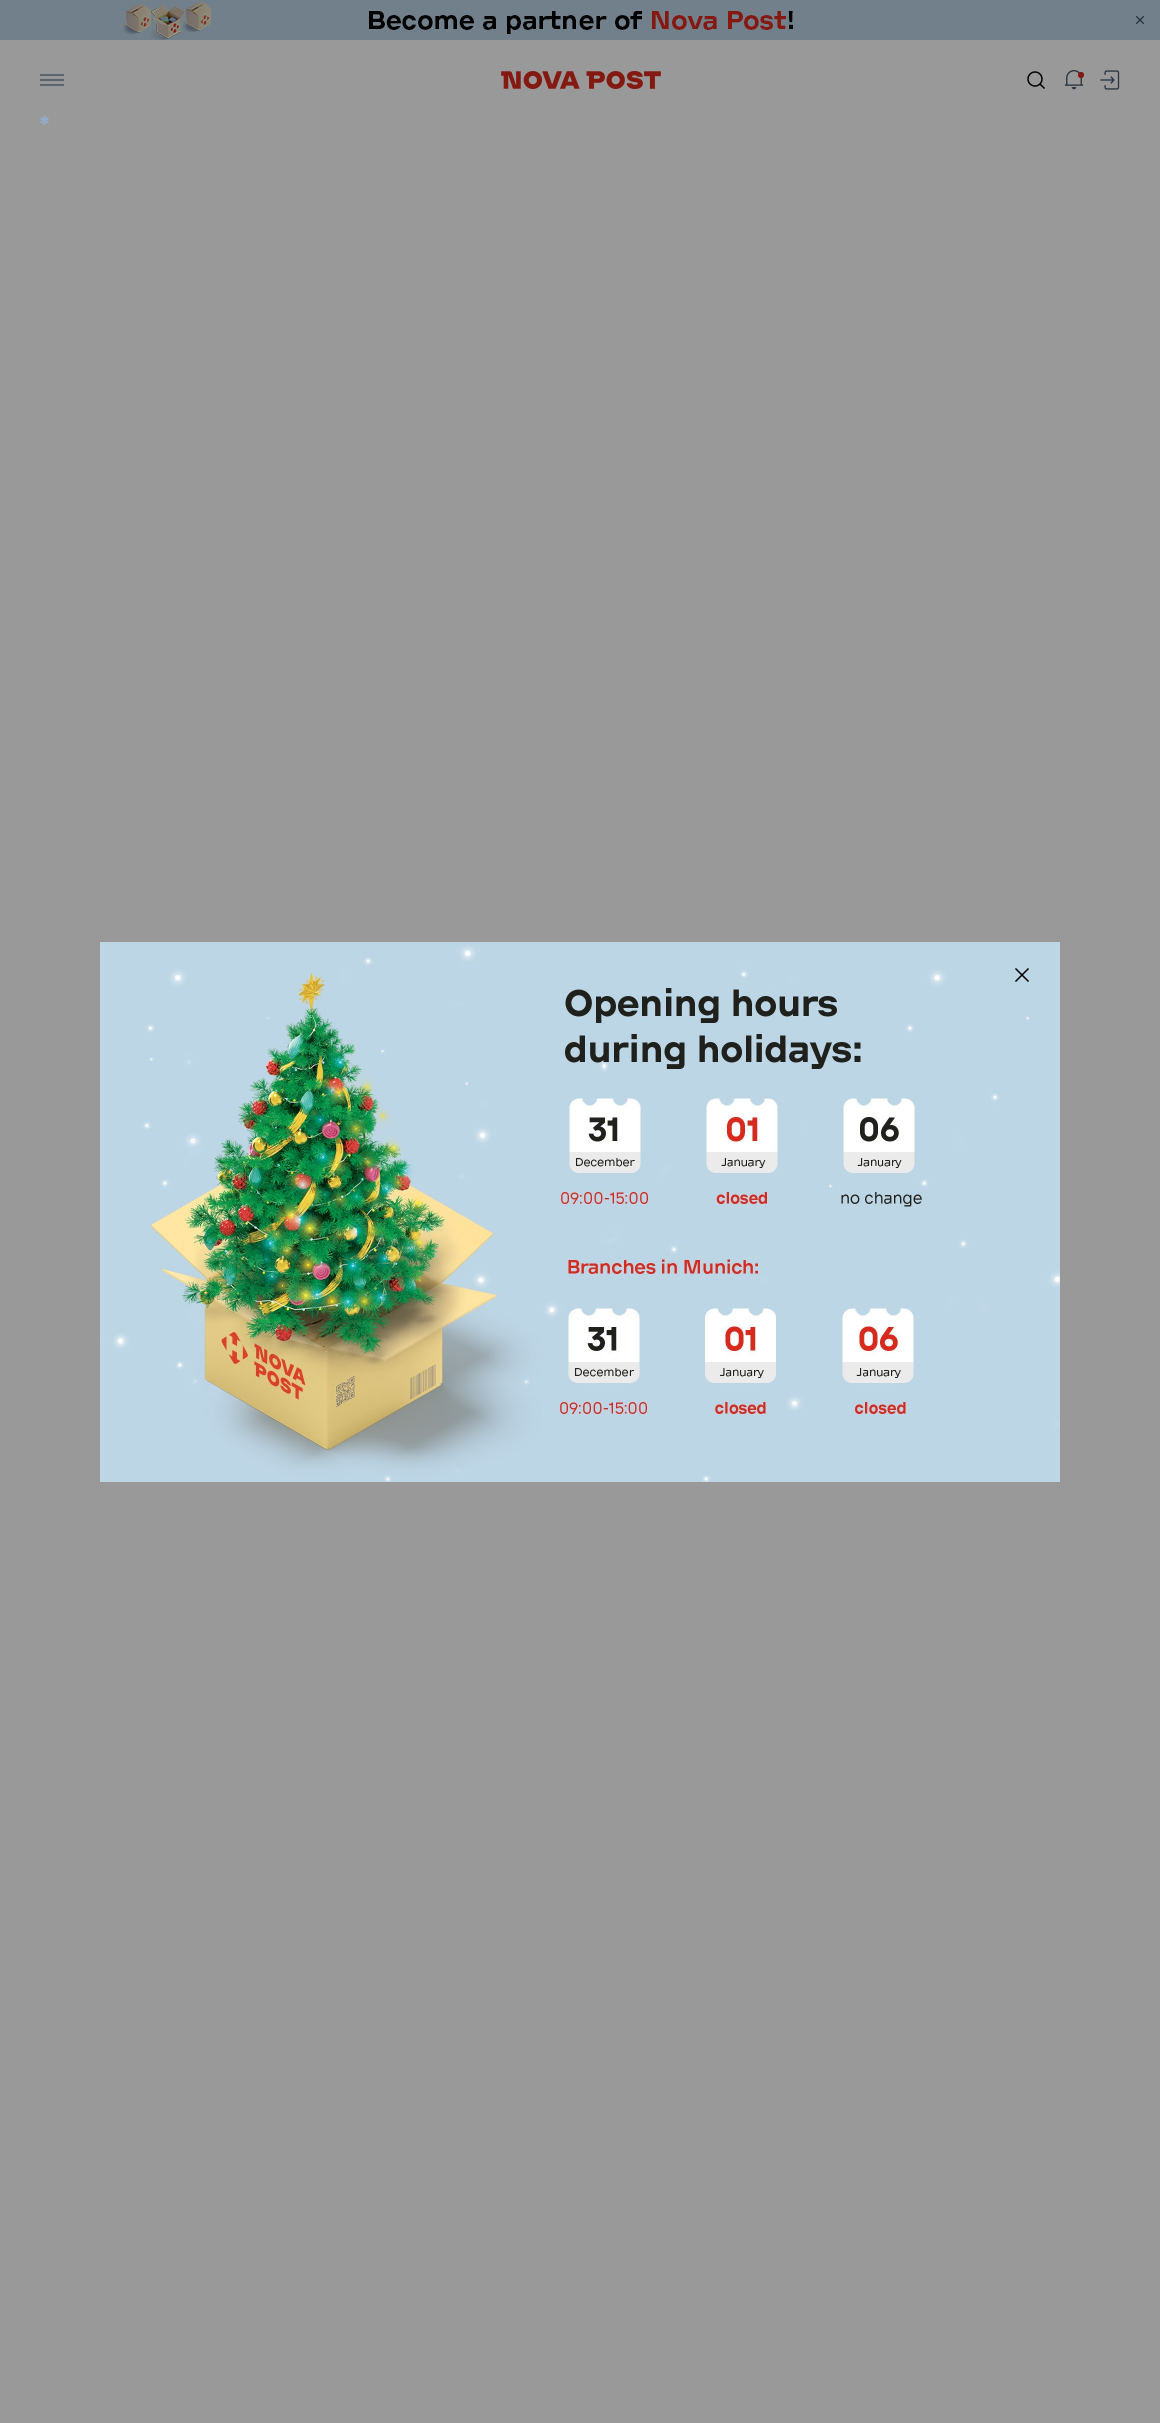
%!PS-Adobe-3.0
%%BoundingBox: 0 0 1160 2423
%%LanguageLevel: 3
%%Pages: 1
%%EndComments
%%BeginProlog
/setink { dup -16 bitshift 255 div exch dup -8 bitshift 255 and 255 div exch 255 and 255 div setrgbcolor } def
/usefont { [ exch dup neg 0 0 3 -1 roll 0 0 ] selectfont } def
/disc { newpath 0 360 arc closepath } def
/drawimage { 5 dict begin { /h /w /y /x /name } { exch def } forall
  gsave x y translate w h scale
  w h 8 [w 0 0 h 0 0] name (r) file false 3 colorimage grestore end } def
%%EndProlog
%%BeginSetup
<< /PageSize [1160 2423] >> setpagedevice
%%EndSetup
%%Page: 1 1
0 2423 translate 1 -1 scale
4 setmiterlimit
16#999999 setink
0 0 1160 2423 rectfill
16#71808A setink
0 0 1160 40 rectfill
(img1.raw) 123 1 670 39 drawimage
(img2.raw) 1135 15 10 10 drawimage
[
    [40 74 24 2 16#59626E]
    [40 79 24 2 16#59626E]
    [40 84 24 2 16#59626E]
] { aload pop setink rectfill } forall
(img3.raw) 501 71 160 18 drawimage
(img4.raw) 1027 71 18 18 drawimage
(img5.raw) 1064 70 20 20 drawimage
16#831911 setink
1081 75 3 disc fill
(img6.raw) 1100 70 20 20 drawimage
/DejaVuSans-Regular 13 usefont
16#91B5DF setink
39 125 moveto (❄) show
(img7.raw) 100 942 960 540 drawimage
(img8.raw) 1015 968 14 14 drawimage
showpage
%%EOF
